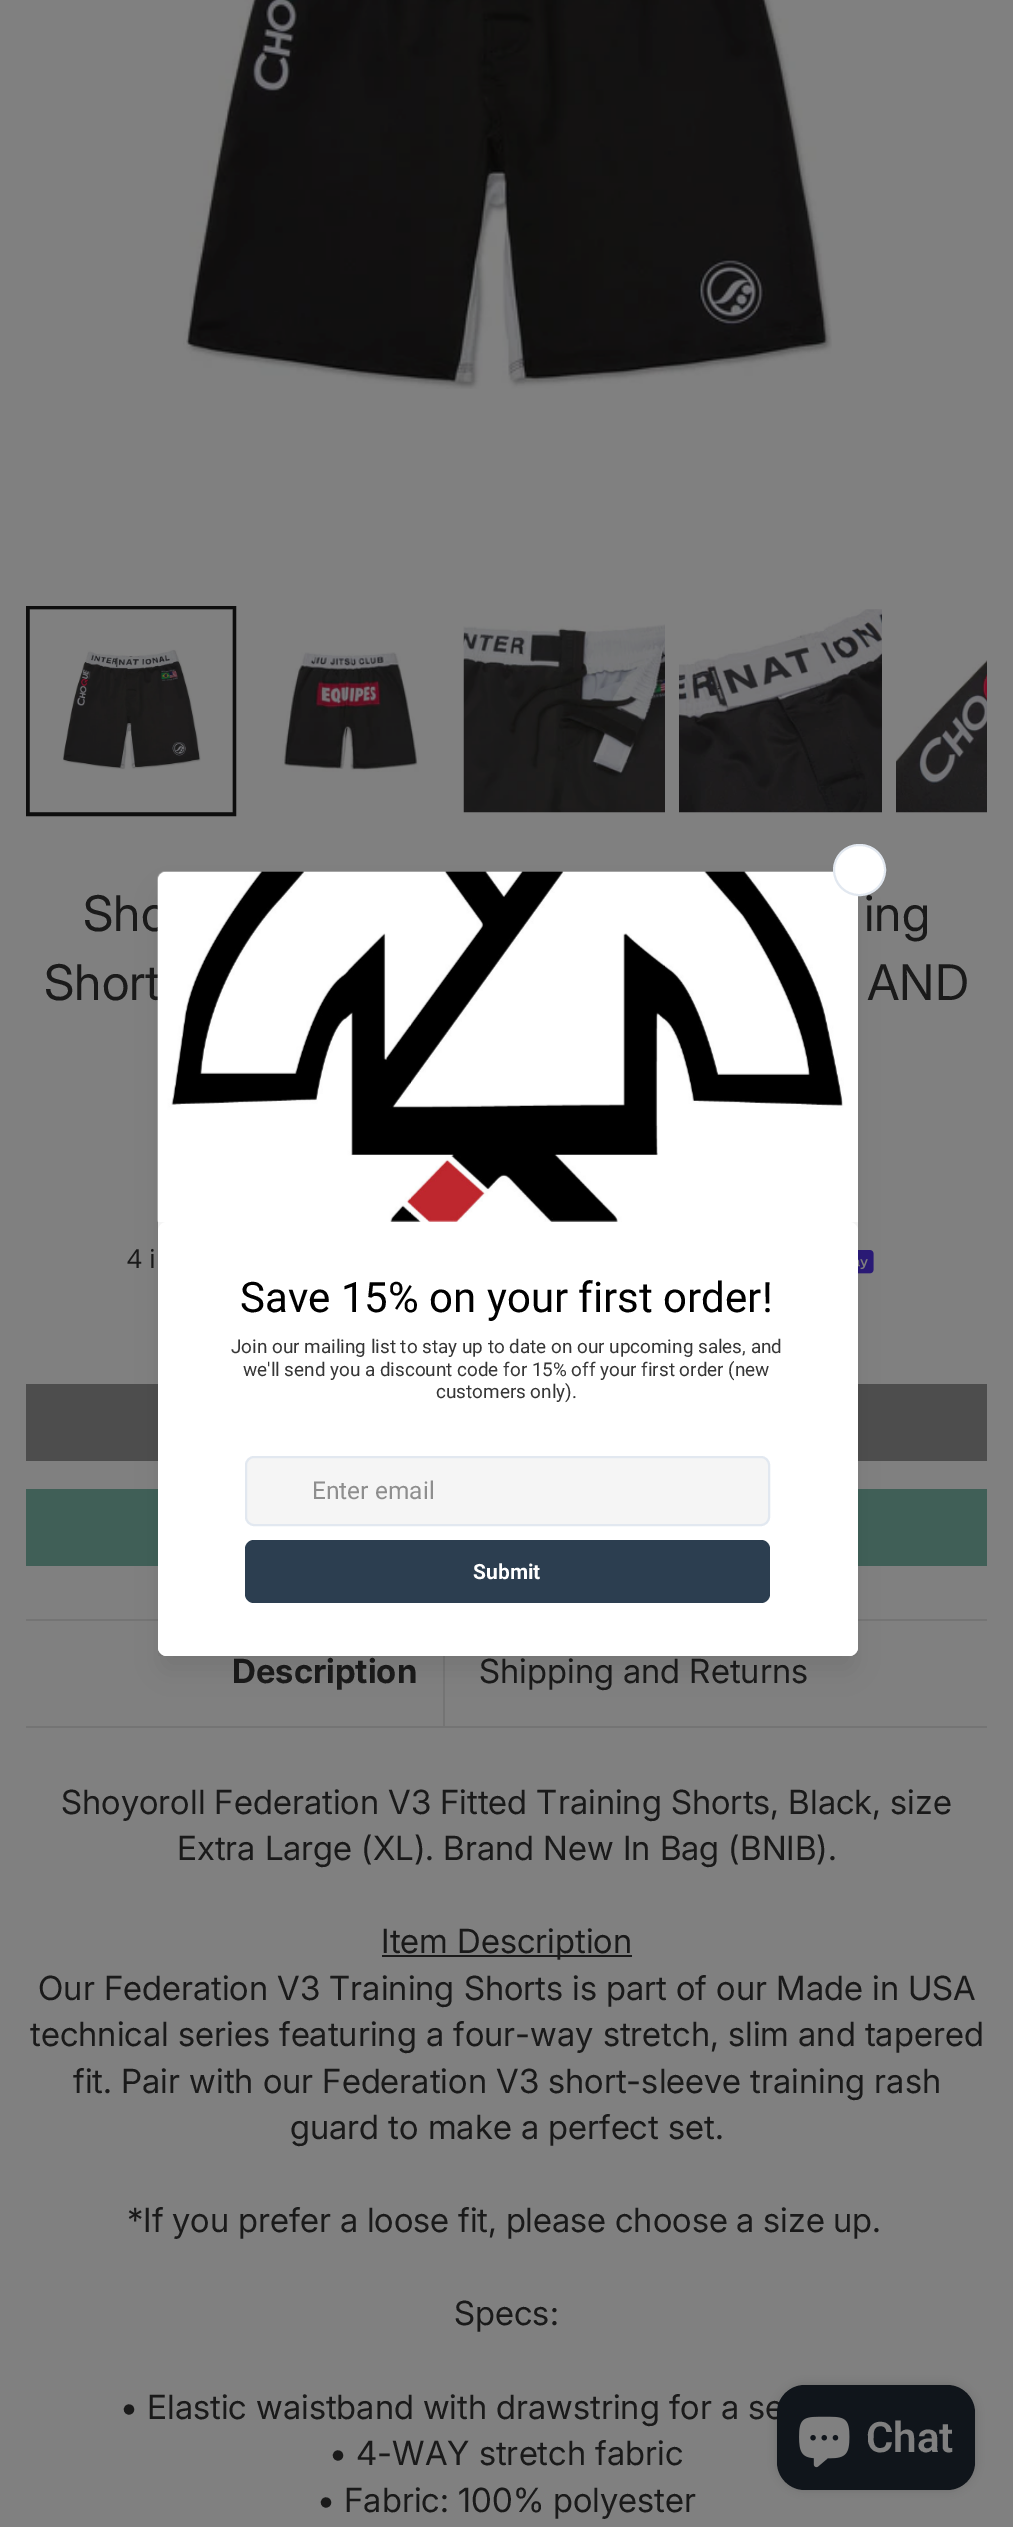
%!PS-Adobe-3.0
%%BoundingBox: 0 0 1013 2527
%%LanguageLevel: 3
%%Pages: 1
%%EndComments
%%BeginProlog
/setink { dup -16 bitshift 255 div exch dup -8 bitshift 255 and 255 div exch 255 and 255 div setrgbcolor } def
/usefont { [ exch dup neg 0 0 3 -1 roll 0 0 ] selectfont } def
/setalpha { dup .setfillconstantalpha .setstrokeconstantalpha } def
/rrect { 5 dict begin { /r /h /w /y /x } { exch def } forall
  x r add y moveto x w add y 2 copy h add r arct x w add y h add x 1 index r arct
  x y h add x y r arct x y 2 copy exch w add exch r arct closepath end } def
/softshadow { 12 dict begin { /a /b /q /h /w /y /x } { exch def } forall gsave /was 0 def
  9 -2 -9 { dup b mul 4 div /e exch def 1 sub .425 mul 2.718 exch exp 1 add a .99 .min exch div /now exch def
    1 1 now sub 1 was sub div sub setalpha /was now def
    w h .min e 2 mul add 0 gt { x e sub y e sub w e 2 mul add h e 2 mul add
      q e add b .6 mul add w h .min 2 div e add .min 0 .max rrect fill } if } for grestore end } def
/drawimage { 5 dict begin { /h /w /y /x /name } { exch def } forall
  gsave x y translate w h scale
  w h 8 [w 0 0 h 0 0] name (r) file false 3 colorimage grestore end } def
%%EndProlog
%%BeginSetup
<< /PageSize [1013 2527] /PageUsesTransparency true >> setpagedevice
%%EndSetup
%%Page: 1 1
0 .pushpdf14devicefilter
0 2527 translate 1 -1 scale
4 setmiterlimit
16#808080 setink
0 0 1013 2527 rectfill
(img1.raw) 183 0 649 389 drawimage
16#0D0D0D setink
4 setlinewidth
28 608 206 206 rectstroke
(img2.raw) 29 609 204 204 drawimage
(img3.raw) 282 652 137 120 drawimage
(img4.raw) 463 624 202 189 drawimage
(img5.raw) 679 609 203 204 drawimage
(img6.raw) 896 660 91 153 drawimage
/Inter-Regular 49 usefont
16#1A1A1A setink
[
    [(Sho) 83 931]
    [(ing) 864 931]
    [(Short) 44 1000]
    [(AND) 867 1000]
] { aload pop moveto show } forall
/NotoSans-Regular 26 usefont
127 1268 moveto (4 i) show
(img7.raw) 858 1250 16 24 drawimage
[
    [26 1384 961 77 16#4D4D4D]
    [26 1489 961 77 16#405F57]
    [26 1619 961 2 16#747474]
    [26 1726 961 2 16#747474]
    [443 1656 2 70 16#747474]
] { aload pop setink rectfill } forall
/Inter-Bold 33.25 usefont
16#1A1A1A setink
232 1683 moveto (Description) show
/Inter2-Regular 33.25 usefont
[
    [(Shipping and Returns) 479 1683]
    [(Shoyoroll Federation V3 Fitted Training Shorts, Black, size) 61 1814]
    [(Extra Large \(XL\). Brand New In Bag \(BNIB\).) 177 1860]
] { aload pop moveto show } forall
382 1955 250 2 rectfill
[
    [(Item Description) 381 1953]
    [(Our Federation V3 Training Shorts is part of our Made in USA) 38 2000]
    [(technical series featuring a four-way stretch, slim and tapered) 30 2046]
    [(fit. Pair with our Federation V3 short-sleeve training rash) 73 2093]
    [(guard to make a perfect set.) 290 2139]
] { aload pop moveto show } forall
127 2232 moveto -0.5 0 32 (*If you prefer a loose fit, please choose a size up.) widthshow
[
    [(Specs:) 454 2325]
    [(• Elastic waistband with drawstring for a se) 120 2419]
    [(• 4-WAY stretch fabric) 329 2465]
    [(• Fabric: 100% polyester) 317 2512]
] { aload pop moveto show } forall
16#000000 setink
163 894 689 774 4 13 0.1 softshadow
16#FFFFFF setink
158 872 700 784 9 rrect fill
(img8.raw) 157 871 701 351 drawimage
834 845 51 50 25 rrect gsave fill grestore
16#E2E8F0 setink
2 setlinewidth
stroke
gsave
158 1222 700 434 rectclip
16#000000 setink
161 1232 693 427 5 5 0.05 softshadow
163 1227 689 423 4 17.5 0.12 softshadow
grestore
16#FFFFFF setink
158 1222 700 434 9 rrect fill
/Roboto-Regular 42 usefont
16#000000 setink
240 1312 moveto (Save 15% on your first order!) show
/Roboto-Regular 18.9 usefont
16#363636 setink
[
    [(Join our mailing list to stay up to date on our upcoming sales, and) 231 1353]
    [(we'll send you a discount code for 15% off your first order \(new) 243 1376]
    [(customers only\).) 436 1398]
] { aload pop moveto show } forall
16#F5F5F5 setink
246 1457 523 68 8 rrect gsave fill grestore
16#E2E8F0 setink
stroke
/Roboto-Regular 24.5 usefont
16#8E8E8E setink
312 1499 moveto (Enter email) show
16#2C3E50 setink
245 1540 525 63 9 rrect fill
/Roboto-Bold 21 usefont
16#FFFFFF setink
473 1579 moveto (Submit) show
16#000000 setink
777 2385 198 105 28 4.5 0.15 softshadow
16#10151B setink
777 2385 198 105 28 rrect fill
(img9.raw) 799 2416 51 52 drawimage
/Roboto-SemiBold 42 usefont
16#808080 setink
866 2452 moveto (Chat) show
.poppdf14devicefilter showpage
%%EOF
